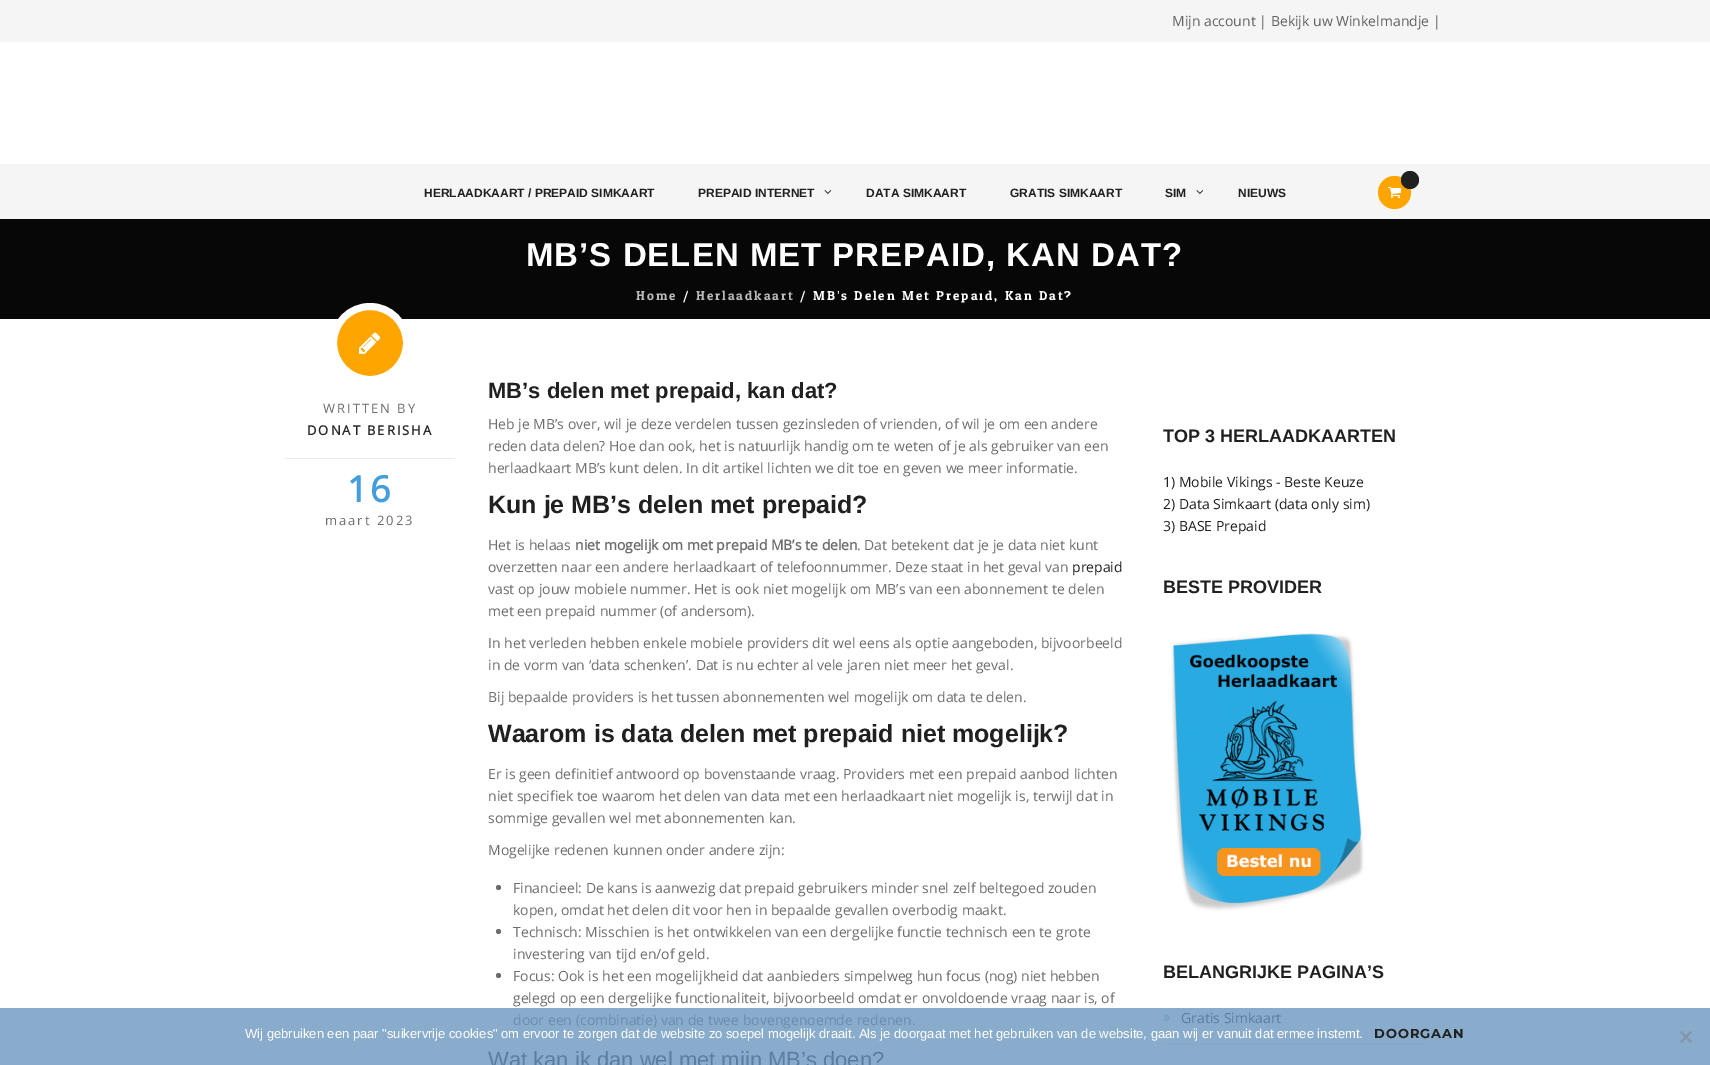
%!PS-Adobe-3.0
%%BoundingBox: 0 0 1710 1065
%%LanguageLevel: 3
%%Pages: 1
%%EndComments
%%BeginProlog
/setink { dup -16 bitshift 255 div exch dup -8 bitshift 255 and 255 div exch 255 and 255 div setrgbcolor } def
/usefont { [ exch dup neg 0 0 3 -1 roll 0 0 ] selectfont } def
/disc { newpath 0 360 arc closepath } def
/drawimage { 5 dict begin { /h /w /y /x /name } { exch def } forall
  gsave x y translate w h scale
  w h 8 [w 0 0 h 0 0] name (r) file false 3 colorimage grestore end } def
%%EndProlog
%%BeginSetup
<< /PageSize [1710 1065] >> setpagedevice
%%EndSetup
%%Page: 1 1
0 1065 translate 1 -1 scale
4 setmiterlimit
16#070707 setink
0 0 1710 1065 rectfill
16#F5F5F5 setink
0 0 1710 42 rectfill
/OpenSans-Regular 14 usefont
16#626262 setink
1172 26 moveto (Mijn account | Bekijk uw Winkelmandje |) show
16#FFFFFF setink
0 42 1710 122 rectfill
16#F5F5F5 setink
0 164 1710 55 rectfill
/Arimo-Bold 12 usefont
16#202020 setink
424 197 moveto (HERLAADKAART / PREPAID SIMKAART) show
698 197 moveto (PREPAID INTERNET) show
(img1.raw) 824 190 8 4 drawimage
[
    [(DATA SIMKAART) 866 197]
    [(GRATIS SIMKAART) 1010 197]
    [(SIM) 1165 197]
] { aload pop moveto show } forall
(img1.raw) 1196 190 8 4 drawimage
1238 197 moveto (NIEUWS) show
16#FFA500 setink
1394.5 192.5 16.5 disc fill
16#202020 setink
1410 180 9 disc fill
(img2.raw) 1388 187 13 11 drawimage
/Arimo-Bold 33 usefont
16#FFFFFF setink
526 266 moveto 1 0 (MB’S DELEN MET PREPAID, KAN DAT?) ashow
/OdorMeanChey-Regular 13 usefont
16#BABABA setink
636 300 moveto 2 0 (Home) ashow
16#FFFFFF setink
683 300 moveto 2 0 (/) ashow
16#BABABA setink
696 300 moveto 2 0 (Herlaadkaart) ashow
16#FFFFFF setink
800 300 moveto 2 0 (/ MB) ashow
/LiberationSans-Regular 13 usefont
837 300 moveto 2 0 (’) ashow
/OdorMeanChey-Regular 13 usefont
841 300 moveto 2 0 (s Delen Met Prepaid, Kan Dat?) ashow
0 319 1710 689 rectfill
16#89ABCC setink
0 1008 1710 57 rectfill
/Arimo-Bold 22 usefont
16#202020 setink
488 398 moveto (MB’s delen met prepaid, kan dat?) show
16#FFA500 setink
370 343 36.5 disc gsave fill grestore
16#FFFFFF setink
7 setlinewidth
stroke
(img3.raw) 359 332 22 22 drawimage
16#EAEAEA setink
285 458 170 1 rectfill
/OpenSans-Regular 13 usefont
16#6D6D6D setink
323 413 moveto 2 0 (WRITTEN BY) ashow
/OpenSans-Bold 13 usefont
16#282828 setink
307 435 moveto 2 0 (DONAT BERISHA) ashow
/OpenSans-Bold 36 usefont
16#449EDD setink
347 502 moveto 2 0 (16) ashow
/OpenSans-Regular 13 usefont
16#6D6D6D setink
325 525 moveto 2 0 (maart 2023) ashow
/OpenSans-Regular 14 usefont
[
    [(Heb je MB’s over, wil je deze verdelen tussen gezinsleden of vrienden, of wil je om een andere) 488 429]
    [(reden data delen? Hoe dan ook, het is natuurlijk handig om te weten of je als gebruiker van een) 488 451]
    [(herlaadkaart MB’s kunt delen. In dit artikel lichten we dit toe en geven we meer informatie.) 488 473]
] { aload pop moveto show } forall
/Arimo-Bold 25 usefont
16#202020 setink
488 513 moveto (Kun je MB’s delen met prepaid?) show
/OpenSans-Regular 14 usefont
16#6D6D6D setink
488 550 moveto (Het is helaas) show
/OpenSans-Bold 14 usefont
575 550 moveto (niet mogelijk om met prepaid MB’s te delen) show
/OpenSans-Regular 14 usefont
857 550 moveto (. Dat betekent dat je je data niet kunt) show
488 572 moveto (overzetten naar een andere herlaadkaart of telefoonnummer. Deze staat in het geval van) show
16#202020 setink
1072 572 moveto (prepaid) show
16#6D6D6D setink
[
    [(vast op jouw mobiele nummer. Het is ook niet mogelijk om MB’s van een abonnement te delen) 488 594]
    [(met een prepaid nummer \(of andersom\).) 488 616]
    [(In het verleden hebben enkele mobiele providers dit wel eens als optie aangeboden, bijvoorbeeld) 488 648]
    [(in de vorm van ‘data schenken’. Dat is nu echter al vele jaren niet meer het geval.) 488 670]
    [(Bij bepaalde providers is het tussen abonnementen wel mogelijk om data te delen.) 488 702]
] { aload pop moveto show } forall
/Arimo-Bold 25 usefont
16#202020 setink
488 742 moveto (Waarom is data delen met prepaid niet mogelijk?) show
/OpenSans-Regular 14 usefont
16#6D6D6D setink
[
    [(Er is geen definitief antwoord op bovenstaande vraag. Providers met een prepaid aanbod lichten) 488 779]
    [(niet specifiek toe waarom het delen van data met een herlaadkaart niet mogelijk is, terwijl dat in) 488 801]
    [(sommige gevallen wel met abonnementen kan.) 488 823]
    [(Mogelijke redenen kunnen onder andere zijn:) 488 855]
] { aload pop moveto show } forall
498.5 887.5 2.5 disc fill
513 893 moveto (Financieel: De kans is aanwezig dat prepaid gebruikers minder snel zelf beltegoed zouden) show
513 915 moveto (kopen, omdat het delen dit voor hen in bepaalde gevallen overbodig maakt.) show
498.5 931.5 2.5 disc fill
513 937 moveto (Technisch: Misschien is het ontwikkelen van een dergelijke functie technisch een te grote) show
513 959 moveto (investering van tijd en/of geld.) show
498.5 975.5 2.5 disc fill
513 981 moveto (Focus: Ook is het een mogelijkheid dat aanbieders simpelweg hun focus \(nog\) niet hebben) show
513 1003 moveto (gelegd op een dergelijke functionaliteit, bijvoorbeeld omdat er onvoldoende vraag naar is, of) show
16#6B8EAF setink
513 1025 moveto (door een \(combinatie\) van de twee bovengenoemde redenen.) show
/Arimo-Regular 22 usefont
16#5C7E9F setink
488 1067 moveto (Wat kan ik dan wel met mijn MB’s doen?) show
/Arimo-Bold 18 usefont
16#202020 setink
1163 442 moveto (TOP 3 HERLAADKAARTEN) show
/OpenSans-Regular 14 usefont
[
    [(1\) Mobile Vikings - Beste Keuze) 1163 487]
    [(2\) Data Simkaart \(data only sim\)) 1163 509]
    [(3\) BASE Prepaid) 1163 531]
] { aload pop moveto show } forall
/Arimo-Bold 18 usefont
1163 593 moveto (BESTE PROVIDER) show
(img4.raw) 1171 633 193 278 drawimage
1163 978 moveto (BELANGRIJKE PAGINA’S) show
(img5.raw) 1163 1014 7 8 drawimage
/OpenSans-Regular 14 usefont
16#5C7E9F setink
1181 1023 moveto (Gratis Simkaart) show
16#84A7C7 setink
1163 1044 262 1 rectfill
/LiberationSans-Regular 13 usefont
16#FFFFFF setink
245 1038 moveto (Wij gebruiken een paar "suikervrije cookies" om ervoor te zorgen dat de website zo soepel mogelijk draait. Als je doorgaat met het gebruiken van de website, gaan wij er vanuit dat ermee instemt.) show
/Montserrat-Thin 13 usefont
16#202020 setink
1374 1038 moveto 1 0 (DOORGAAN) ashow
16#8496A6 setink
1690.5 1031 moveto 1692 1032.5 lineto 1681.5 1043 lineto 1680 1041.5 lineto closepath fill
1680 1032.5 moveto 1681.5 1031 lineto 1692 1041.5 lineto 1690.5 1043 lineto closepath fill
showpage
%%EOF
